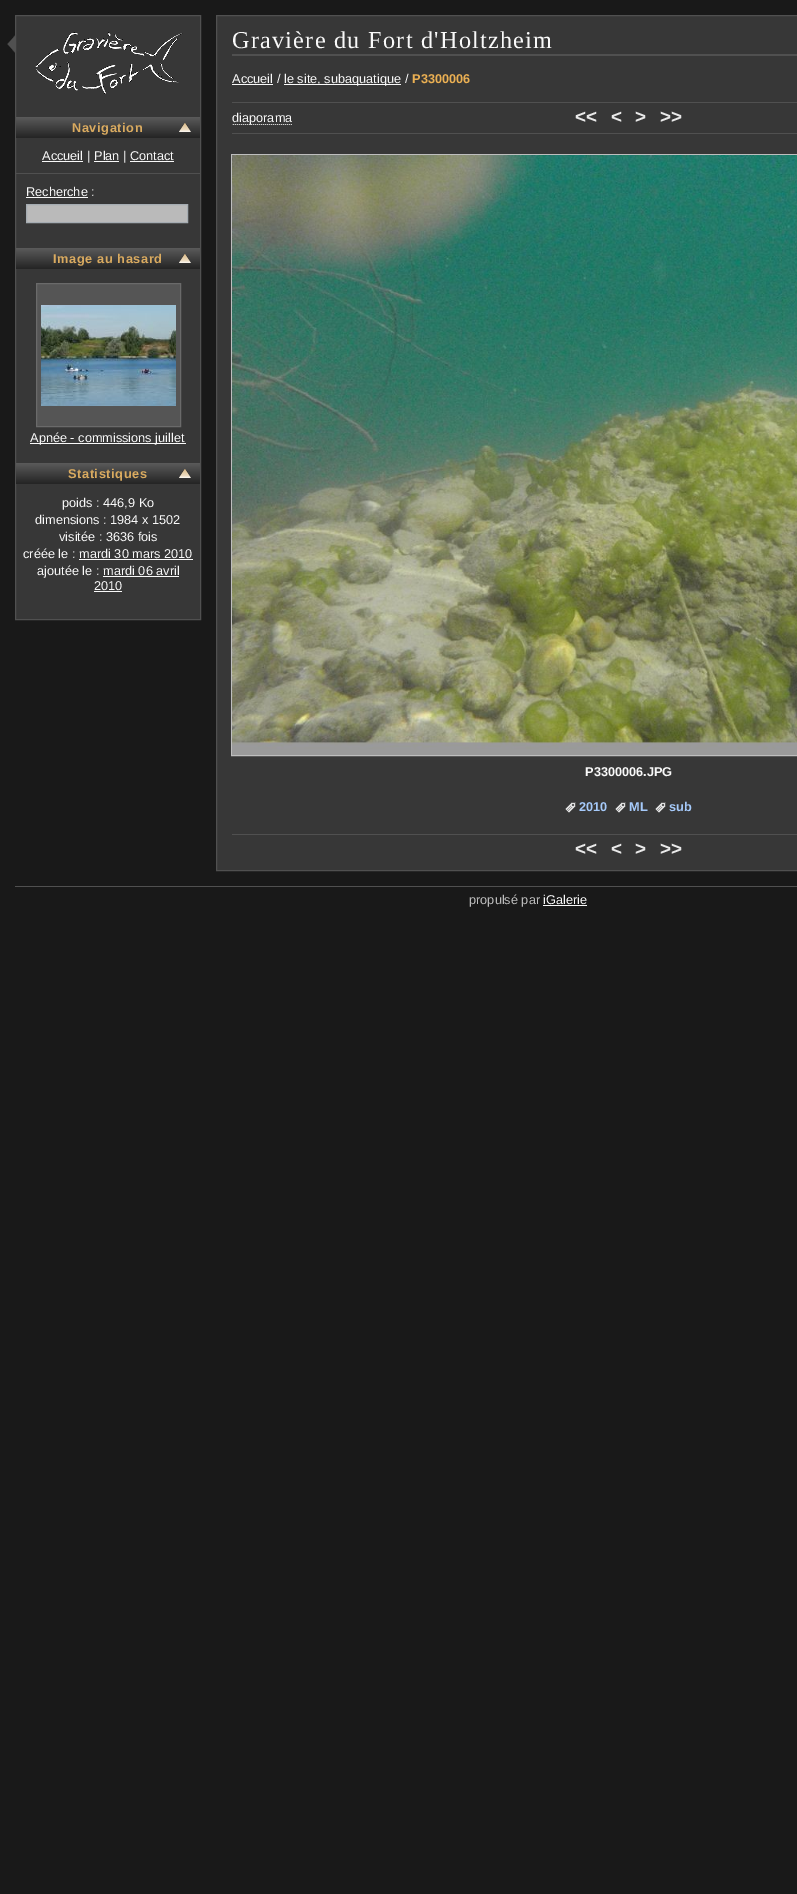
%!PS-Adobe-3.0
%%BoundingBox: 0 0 797 1894
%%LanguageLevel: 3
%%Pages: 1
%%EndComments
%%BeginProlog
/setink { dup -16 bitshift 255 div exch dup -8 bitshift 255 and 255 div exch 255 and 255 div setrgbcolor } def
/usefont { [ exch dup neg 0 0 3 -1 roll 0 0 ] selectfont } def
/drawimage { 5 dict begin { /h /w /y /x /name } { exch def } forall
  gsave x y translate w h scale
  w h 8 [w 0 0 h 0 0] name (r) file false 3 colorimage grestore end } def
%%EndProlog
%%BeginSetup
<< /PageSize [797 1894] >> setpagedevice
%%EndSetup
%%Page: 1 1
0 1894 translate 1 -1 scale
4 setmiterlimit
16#191919 setink
0 0 797 1894 rectfill
16#373737 setink
15.5 15.5 moveto 200.5 15.5 lineto 200.5 619.5 lineto 15.5 619.5 lineto closepath gsave fill grestore
16#505050 setink
stroke
(img1.raw) 35 32 148 62 drawimage
(img2.raw) 16 117 184 21 drawimage
(img3.raw) 179 123 12 9 drawimage
/LiberationSans-Bold 12.75 usefont
16#DAAB60 setink
72 132 moveto 0.6 0 (Navigation) ashow
16#505050 setink
16 173 184 1 rectfill
/LiberationSans-Regular 12.75 usefont
16#F9F9F9 setink
42 160 moveto (Accueil) show
42 161 41 1 rectfill
87 160 moveto (|) show
94 160 moveto (Plan) show
94 161 25 1 rectfill
123 160 moveto (|) show
130 160 moveto (Contact) show
130 161 44 1 rectfill
26 196 moveto (Recherche) show
26 197 62 1 rectfill
91 196 moveto (:) show
16#BABABA setink
26.5 204.5 moveto 187.5 204.5 lineto 187.5 222.5 lineto 26.5 222.5 lineto closepath gsave fill grestore
16#A5ACB2 setink
stroke
(img2.raw) 16 248 184 21 drawimage
(img3.raw) 179 254 12 9 drawimage
/LiberationSans-Bold 12.75 usefont
16#DAAB60 setink
53 263 moveto 0.6 0 (Image au hasard) ashow
16#555555 setink
36.5 283.5 moveto 180.5 283.5 lineto 180.5 426.5 lineto 36.5 426.5 lineto closepath gsave fill grestore
16#6A6A6A setink
stroke
(img4.raw) 41 305 135 101 drawimage
16#F9F9F9 setink
30 443 156 1 rectfill
/LiberationSans-Regular 12.75 usefont
30 442 moveto (Apnée - commissions juillet) show
(img2.raw) 16 463 184 21 drawimage
(img3.raw) 179 469 12 9 drawimage
/LiberationSans-Bold 12.75 usefont
16#DAAB60 setink
68 478 moveto 0.6 0 (Statistiques) ashow
/LiberationSans-Regular 12.75 usefont
16#F9F9F9 setink
[
    [(poids : 446,9 Ko) 62 507]
    [(dimensions : 1984 x 1502) 35 524]
    [(visitée : 3636 fois) 59 541]
    [(créée le :) 23 558]
    [(mardi 30 mars 2010) 79 558]
] { aload pop moveto show } forall
79 559 114 1 rectfill
37 575 moveto (ajoutée le :) show
103 575 moveto (mardi 06 avril) show
103 576 76 1 rectfill
94 590 moveto (2010) show
94 591 28 1 rectfill
16#373737 setink
216.5 15.5 moveto 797.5 15.5 lineto 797.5 870.5 lineto 216.5 870.5 lineto closepath gsave fill grestore
16#505050 setink
stroke
(img5.raw) 7 35 8 18 drawimage
232 54 565 2 rectfill
/LiberationSerif-Regular 24.25 usefont
16#F9F9F9 setink
232 48 moveto 1.25 0 (Gravière du Fort d'Holtzheim) ashow
16#505050 setink
232 102 565 1 rectfill
/LiberationSans-Regular 12.75 usefont
16#F9F9F9 setink
232 83 moveto (Accueil) show
232 84 41 1 rectfill
277 83 moveto (/) show
284 84 117 1 rectfill
284 83 moveto (le site, subaquatique) show
405 83 moveto (/) show
/LiberationSans-Bold 12.75 usefont
16#EBB053 setink
412 83 moveto (P3300006) show
16#505050 setink
232 133 565 1 rectfill
(img6.raw) 232 124 60 1 drawimage
/LiberationSans-Regular 12.75 usefont
16#F9F9F9 setink
232 122 moveto (diaporama) show
/LiberationSans-Bold 19 usefont
16#E9E9E9 setink
[
    [(<<) 575 123]
    [(<) 611 123]
    [(>) 635 123]
    [(>>) 660 123]
] { aload pop moveto show } forall
16#BEBEBE setink
231.5 154.5 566 601 rectstroke
(img7.raw) 232 155 565 600 drawimage
/LiberationSans-Bold 12.75 usefont
16#F9F9F9 setink
585 776 moveto (P3300006.JPG) show
(img8.raw) 565 802 11 11 drawimage
16#A6CAFA setink
579 811 moveto (2010) show
(img8.raw) 615 802 11 11 drawimage
629 811 moveto (ML) show
(img8.raw) 655 802 11 11 drawimage
669 811 moveto (sub) show
16#505050 setink
232 834 565 1 rectfill
/LiberationSans-Bold 19 usefont
16#E9E9E9 setink
[
    [(<<) 575 855]
    [(<) 611 855]
    [(>) 635 855]
    [(>>) 660 855]
] { aload pop moveto show } forall
16#505050 setink
15 886 782 1 rectfill
/LiberationSans-Regular 12.75 usefont
16#BEBEBE setink
469 904 moveto (propulsé par) show
16#F9F9F9 setink
543 904 moveto (iGalerie) show
543 905 44 1 rectfill
showpage
%%EOF
